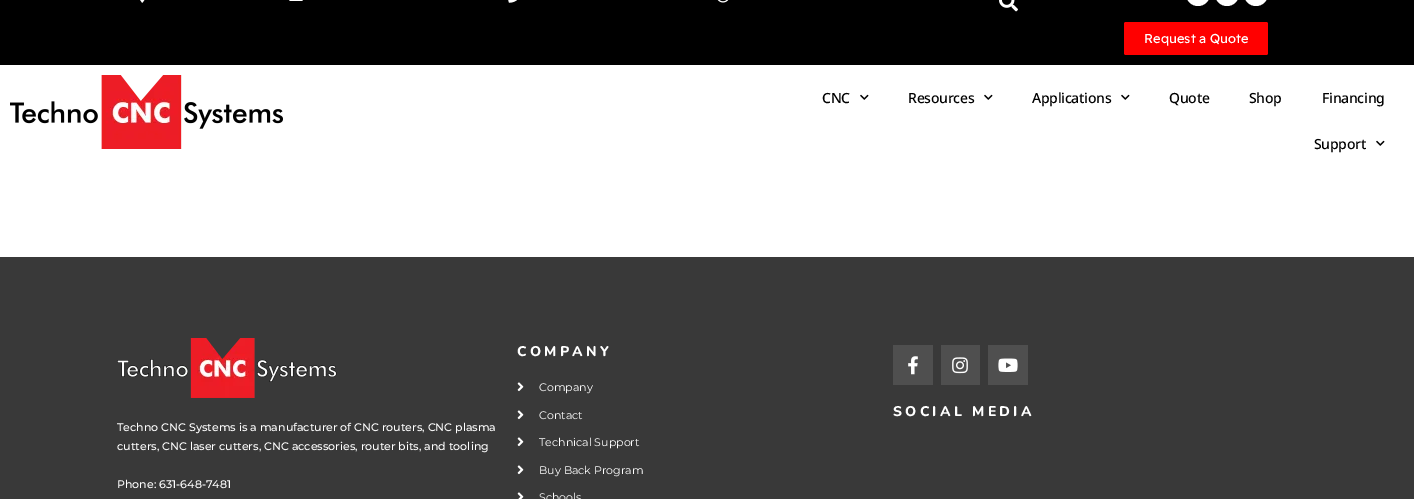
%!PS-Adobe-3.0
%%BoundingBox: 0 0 1414 499
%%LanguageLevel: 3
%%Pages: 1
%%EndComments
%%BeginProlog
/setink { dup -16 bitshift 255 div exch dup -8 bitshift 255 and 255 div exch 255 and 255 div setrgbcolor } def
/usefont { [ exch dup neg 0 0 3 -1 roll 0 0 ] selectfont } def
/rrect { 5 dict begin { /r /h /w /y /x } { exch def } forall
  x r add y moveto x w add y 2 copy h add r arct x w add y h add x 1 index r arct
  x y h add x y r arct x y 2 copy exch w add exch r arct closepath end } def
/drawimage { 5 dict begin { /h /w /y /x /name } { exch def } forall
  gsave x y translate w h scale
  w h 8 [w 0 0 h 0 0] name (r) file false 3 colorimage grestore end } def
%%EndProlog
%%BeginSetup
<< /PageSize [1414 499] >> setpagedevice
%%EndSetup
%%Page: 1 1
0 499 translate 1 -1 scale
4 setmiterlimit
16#FFFFFF setink
0 0 1414 499 rectfill
16#000000 setink
0 0 1414 65 rectfill
(img1.raw) 140 0 5 3 drawimage
(img2.raw) 289 0 14 1 drawimage
(img3.raw) 508 0 9 3 drawimage
(img4.raw) 717 0 12 3 drawimage
(img5.raw) 999 0 19 12 drawimage
16#FFFFFF setink
1186 -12 24 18 12 rrect fill
1215 -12 24 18 12 rrect fill
1244 -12 24 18 12 rrect fill
16#FF0000 setink
1124 22 144 33 2 rrect fill
/ReadexPro-Regular 13 usefont
16#FFFFFF setink
1144 43 moveto (Request a Quote) show
(img6.raw) 10 75 273 74 drawimage
/NotoSans-Medium 14 usefont
16#000000 setink
822 103 moveto -0.25 0 (CNC) ashow
(img7.raw) 860 94 9 6 drawimage
908 103 moveto -0.25 0 (Resources) ashow
(img7.raw) 984 94 9 6 drawimage
1032 103 moveto -0.25 0 (Applications) ashow
(img7.raw) 1121 94 9 6 drawimage
1169 103 moveto -0.25 0 (Quote) ashow
1249 103 moveto -0.25 0 (Shop) ashow
1322 103 moveto -0.25 0 (Financing) ashow
1314 149 moveto -0.25 0 (Support) ashow
(img7.raw) 1376 140 9 6 drawimage
16#393939 setink
0 257 1414 242 rectfill
/Nunito-ExtraBold 14 usefont
16#FFFFFF setink
517 356 moveto 3.25 0 (COMPANY) ashow
(img8.raw) 517 382 7 10 drawimage
/Montserrat-Regular 11 usefont
539 391 moveto (Company) show
(img8.raw) 517 410 7 10 drawimage
539 419 moveto (Contact) show
(img8.raw) 517 437 7 10 drawimage
539 446 moveto (Technical Support) show
(img8.raw) 517 465 7 10 drawimage
539 474 moveto (Buy Back Program) show
(img9.raw) 517 492 7 7 drawimage
539 501 moveto (Schools) show
16#4F4F4F setink
893 345 40 40 rectfill
(img10.raw) 908 356 10 19 drawimage
941 345 39 40 rectfill
(img11.raw) 952 357 16 17 drawimage
988 345 40 40 rectfill
(img12.raw) 998 358 20 14 drawimage
/Nunito-ExtraBold 14 usefont
16#FFFFFF setink
893 416 moveto 3.25 0 (SOCIAL MEDIA) ashow
(img13.raw) 117 338 220 60 drawimage
/Montserrat-Medium 11 usefont
[
    [(Techno CNC Systems is a manufacturer of CNC routers, CNC plasma) 117 431]
    [(cutters, CNC laser cutters, CNC accessories, router bits, and tooling) 117 450]
    [(Phone: 631-648-7481) 117 488]
] { aload pop moveto show } forall
showpage
%%EOF
